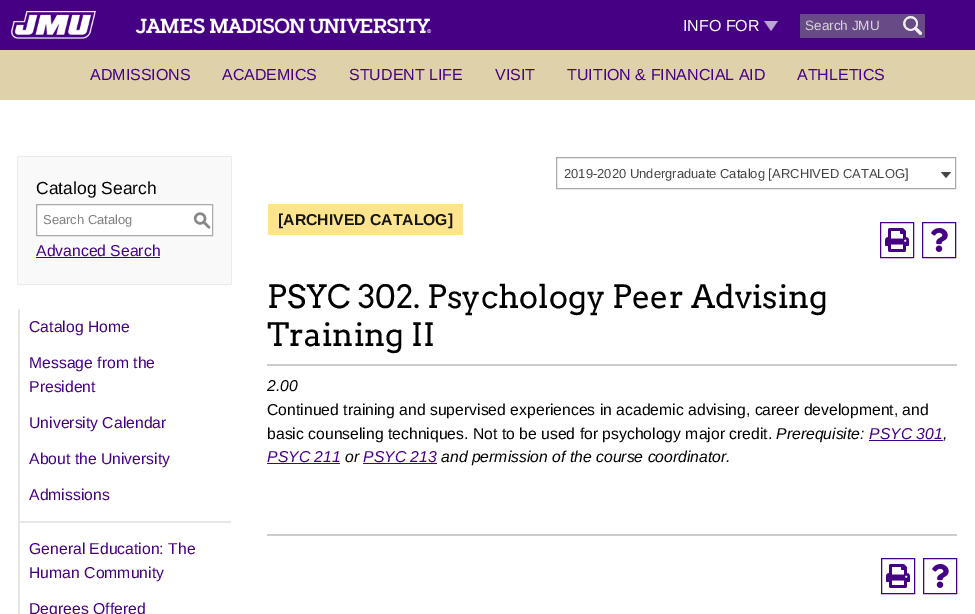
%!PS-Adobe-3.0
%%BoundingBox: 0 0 975 614
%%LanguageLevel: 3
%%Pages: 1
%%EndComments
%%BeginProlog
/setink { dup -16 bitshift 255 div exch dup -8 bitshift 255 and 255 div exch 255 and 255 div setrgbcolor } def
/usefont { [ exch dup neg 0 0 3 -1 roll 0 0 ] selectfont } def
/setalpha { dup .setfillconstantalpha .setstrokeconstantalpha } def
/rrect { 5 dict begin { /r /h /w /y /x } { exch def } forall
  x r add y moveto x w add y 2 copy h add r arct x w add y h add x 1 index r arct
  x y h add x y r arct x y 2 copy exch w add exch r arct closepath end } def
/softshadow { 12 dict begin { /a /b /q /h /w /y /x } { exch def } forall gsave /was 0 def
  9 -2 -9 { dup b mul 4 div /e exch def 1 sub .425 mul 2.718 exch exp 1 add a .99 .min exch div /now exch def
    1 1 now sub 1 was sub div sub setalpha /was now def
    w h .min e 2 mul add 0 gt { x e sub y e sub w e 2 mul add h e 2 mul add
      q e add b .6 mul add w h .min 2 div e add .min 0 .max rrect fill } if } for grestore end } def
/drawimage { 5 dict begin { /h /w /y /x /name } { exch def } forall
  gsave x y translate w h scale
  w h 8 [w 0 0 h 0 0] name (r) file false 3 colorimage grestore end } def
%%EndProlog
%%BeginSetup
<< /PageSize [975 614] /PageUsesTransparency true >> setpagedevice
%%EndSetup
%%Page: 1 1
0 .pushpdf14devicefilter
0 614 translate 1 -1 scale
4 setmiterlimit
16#FFFFFF setink
0 0 975 614 rectfill
16#450084 setink
0 0 975 50 rectfill
(img1.raw) 10 11 422 28 drawimage
/LiberationSans-Regular 16 usefont
16#FFFFFF setink
683 31 moveto (INFO FOR) show
(img2.raw) 764 21 14 10 drawimage
16#684B86 setink
800 14 125 24 rectfill
/LiberationSans-Regular 13.5 usefont
16#D6D6D6 setink
805 30 moveto (Search JMU) show
(img3.raw) 903 16 19 19 drawimage
16#DFD2AA setink
0 50 975 50 rectfill
/LiberationSans-Regular 16 usefont
16#450085 setink
[
    [(ADMISSIONS) 90 80]
    [(ACADEMICS) 222 80]
    [(STUDENT LIFE) 349 80]
    [(VISIT) 495 80]
    [(TUITION & FINANCIAL AID) 567 80]
    [(ATHLETICS) 797 80]
] { aload pop moveto show } forall
16#AAAAAA setink
556.5 157.5 399 31 rectstroke
/LiberationSans-Regular 13 usefont
16#444444 setink
564 178 moveto (2019-2020 Undergraduate Catalog [ARCHIVED CATALOG]) show
941 172 moveto 951 172 lineto 946 178 lineto closepath fill
16#000000 setink
18 157 213 127 0 0.5 0.3 softshadow
16#F9F9F9 setink
18 157 213 127 rectfill
/LiberationSans-Regular 17.5 usefont
16#000000 setink
36 194 moveto (Catalog Search) show
16#FFFFFF setink
36.5 204.5 moveto 212.5 204.5 lineto 212.5 235.5 lineto 36.5 235.5 lineto closepath gsave fill grestore
16#AAAAAA setink
stroke
/LiberationSans-Regular 13 usefont
16#808080 setink
43 224 moveto (Search Catalog) show
/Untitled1-Medium 18 usefont
16#888888 setink
193 226 moveto (S) show
/LiberationSans-Regular 15.75 usefont
16#450085 setink
36 256 moveto (Advanced Search) show
36 257 124 1 rectfill
16#E6E6E6 setink
18 309 2 305 rectfill
16#450085 setink
[
    [(Catalog Home) 29 332]
    [(Message from the) 29 368]
    [(President) 29 392]
    [(University Calendar) 29 428]
    [(About the University) 29 464]
    [(Admissions) 29 500]
] { aload pop moveto show } forall
16#E6E6E6 setink
20 521 211 2 rectfill
16#450085 setink
[
    [(General Education: The) 29 554]
    [(Human Community) 29 578]
    [(Degrees Offered) 29 614]
] { aload pop moveto show } forall
16#FFE48E setink
268 204 195 31 rectfill
/LiberationSans-Bold 15.75 usefont
16#151515 setink
278 225 moveto ([ARCHIVED CATALOG]) show
16#450084 setink
880.5 222.5 33 35 rectstroke
(img4.raw) 885 228 24 24 drawimage
922.5 222.5 33 35 rectstroke
(img5.raw) 931 228 17 24 drawimage
/Arvo-Regular 32 usefont
16#000000 setink
267 308 moveto (PSYC 302. Psychology Peer Advising) show
267 346 moveto (Training II) show
16#CCCCCC setink
267 364 690 2 rectfill
/LiberationSans-Italic 15.75 usefont
16#000000 setink
267 391 moveto (2.00) show
/LiberationSans-Regular 15.75 usefont
267 415 moveto (Continued training and supervised experiences in academic advising, career development, and) show
267 439 moveto (basic counseling techniques. Not to be used for psychology major credit.) show
/LiberationSans-Italic 15.75 usefont
776 439 moveto (Prerequisite:) show
16#450085 setink
869 439 moveto (PSYC 301) show
869 440 74 1 rectfill
16#000000 setink
943 439 moveto (,) show
16#450085 setink
267 462 moveto (PSYC 211) show
267 463 73 1 rectfill
16#000000 setink
345 462 moveto (or) show
16#450085 setink
363 462 moveto (PSYC 213) show
363 463 74 1 rectfill
16#000000 setink
441 462 moveto (and permission of the course coordinator.) show
16#CCCCCC setink
267 534 690 2 rectfill
16#450084 setink
881.5 558.5 33 35 rectstroke
(img4.raw) 886 564 24 24 drawimage
923.5 558.5 33 35 rectstroke
(img5.raw) 932 564 17 24 drawimage
.poppdf14devicefilter showpage
%%EOF
